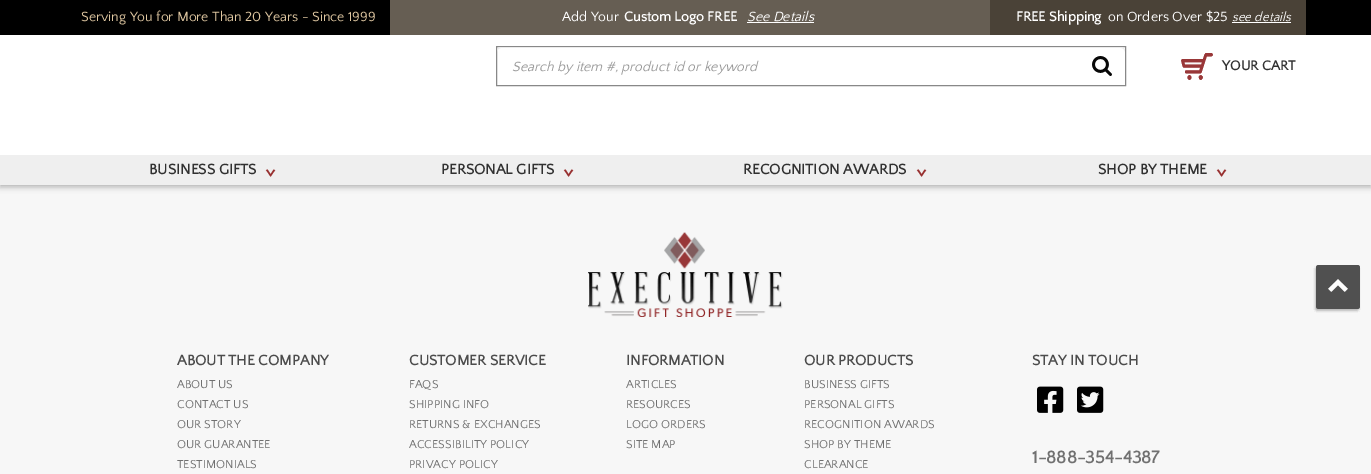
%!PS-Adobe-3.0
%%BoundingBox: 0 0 1371 474
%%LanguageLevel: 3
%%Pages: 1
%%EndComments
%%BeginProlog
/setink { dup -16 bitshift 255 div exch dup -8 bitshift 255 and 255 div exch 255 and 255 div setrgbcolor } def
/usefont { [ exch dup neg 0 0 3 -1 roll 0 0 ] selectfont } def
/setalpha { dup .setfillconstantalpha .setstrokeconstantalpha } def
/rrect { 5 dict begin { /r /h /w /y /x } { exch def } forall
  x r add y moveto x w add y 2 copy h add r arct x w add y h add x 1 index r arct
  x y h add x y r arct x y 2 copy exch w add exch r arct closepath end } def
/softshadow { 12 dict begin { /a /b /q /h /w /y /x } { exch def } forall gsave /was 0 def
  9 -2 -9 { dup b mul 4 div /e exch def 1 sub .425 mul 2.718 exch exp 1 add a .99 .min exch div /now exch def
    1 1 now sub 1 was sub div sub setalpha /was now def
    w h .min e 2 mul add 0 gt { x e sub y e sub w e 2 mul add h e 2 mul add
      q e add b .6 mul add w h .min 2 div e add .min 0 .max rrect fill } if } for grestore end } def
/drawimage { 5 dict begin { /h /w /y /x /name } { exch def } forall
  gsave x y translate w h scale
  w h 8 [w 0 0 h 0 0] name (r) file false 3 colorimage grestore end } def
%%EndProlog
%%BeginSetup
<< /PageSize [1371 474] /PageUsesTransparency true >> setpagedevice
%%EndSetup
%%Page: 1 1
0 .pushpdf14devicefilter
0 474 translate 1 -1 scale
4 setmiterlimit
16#FFFFFF setink
0 0 1371 474 rectfill
16#F7F7F7 setink
0 187 1371 287 rectfill
16#AAAAAA setink
0 2 1371 185 0 3 1 softshadow
16#FFFFFF setink
0 35 1371 120 rectfill
16#000000 setink
0 0 1371 35 rectfill
/QuattrocentoSans-Regular 14 usefont
16#DFC7A1 setink
81 21 moveto (Serving You for More Than 20 Years - Since 1999) show
16#665E53 setink
390 0 600 35 rectfill
16#FFFFFF setink
562 21 moveto (Add Your) show
/QuattrocentoSans-Bold 14 usefont
624 21 moveto (Custom Logo FREE) show
/QuattrocentoSans-Italic 14 usefont
747 21 moveto (See Details) show
747 22 67 1 rectfill
16#4A4237 setink
990 0 316 35 rectfill
/QuattrocentoSans-Bold 14 usefont
16#FFFFFF setink
1016 21 moveto (FREE Shipping) show
/QuattrocentoSans-Regular 14 usefont
1108 21 moveto (on Orders Over $25) show
/QuattrocentoSans-Italic 13 usefont
1232 21 moveto (see details) show
1232 22 59 1 rectfill
16#888888 setink
496.5 46.5 629 39 rectstroke
16#ECECEC setink
501 48 moveto 1121 48 lineto 1123 48 1125 50 1125 52 curveto 1125 49 1124 47 1121 47 curveto 501 47 lineto 498 47 497 49 497 52 curveto 497 50 499 48 501 48 curveto closepath fill
/QuattrocentoSans-Italic 14 usefont
16#999999 setink
512 71 moveto (Search by item #, product id or keyword) show
(img1.raw) 1092 56 20 20 drawimage
(img2.raw) 1181 53 32 27 drawimage
/QuattrocentoSans-Bold 14 usefont
16#313131 setink
1222 70 moveto (YOUR CART) show
16#EFEFEF setink
0 155 1371 30 rectfill
/QuattrocentoSans-Bold 15 usefont
16#313131 setink
149 174 moveto (BUSINESS GIFTS) show
/QuattrocentoSans-Bold 22 usefont
16#983131 setink
gsave 265 168 translate 90 rotate 0 0 moveto -3 0 (>) ashow grestore
/QuattrocentoSans-Bold 15 usefont
16#313131 setink
441 174 moveto (PERSONAL GIFTS) show
/QuattrocentoSans-Bold 22 usefont
16#983131 setink
gsave 563 168 translate 90 rotate 0 0 moveto -3 0 (>) ashow grestore
/QuattrocentoSans-Bold 15 usefont
16#313131 setink
743 174 moveto (RECOGNITION AWARDS) show
/QuattrocentoSans-Bold 22 usefont
16#983131 setink
gsave 916 168 translate 90 rotate 0 0 moveto -3 0 (>) ashow grestore
/QuattrocentoSans-Bold 15 usefont
16#313131 setink
1098 174 moveto (SHOP BY THEME) show
/QuattrocentoSans-Bold 22 usefont
16#983131 setink
gsave 1216 168 translate 90 rotate 0 0 moveto -3 0 (>) ashow grestore
(img3.raw) 588 232 195 85 drawimage
/QuattrocentoSans-Bold 15 usefont
16#4C4C4C setink
177 365 moveto (ABOUT THE COMPANY) show
/QuattrocentoSans-Regular 12 usefont
16#707070 setink
[
    [(ABOUT US) 177 388]
    [(CONTACT US) 177 408]
    [(OUR STORY) 177 428]
    [(OUR GUARANTEE) 177 448]
    [(TESTIMONIALS) 177 468]
] { aload pop moveto show } forall
/QuattrocentoSans-Bold 15 usefont
16#4C4C4C setink
409 365 moveto (CUSTOMER SERVICE) show
/QuattrocentoSans-Regular 12 usefont
16#707070 setink
[
    [(FAQS) 409 388]
    [(SHIPPING INFO) 409 408]
    [(RETURNS & EXCHANGES) 409 428]
    [(ACCESSIBILITY POLICY) 409 448]
    [(PRIVACY POLICY) 409 468]
] { aload pop moveto show } forall
/QuattrocentoSans-Bold 15 usefont
16#4C4C4C setink
626 365 moveto (INFORMATION) show
/QuattrocentoSans-Regular 12 usefont
16#707070 setink
[
    [(ARTICLES) 626 388]
    [(RESOURCES) 626 408]
    [(LOGO ORDERS) 626 428]
    [(SITE MAP) 626 448]
] { aload pop moveto show } forall
/QuattrocentoSans-Bold 15 usefont
16#4C4C4C setink
804 365 moveto (OUR PRODUCTS) show
/QuattrocentoSans-Regular 12 usefont
16#707070 setink
[
    [(BUSINESS GIFTS) 804 388]
    [(PERSONAL GIFTS) 804 408]
    [(RECOGNITION AWARDS) 804 428]
    [(SHOP BY THEME) 804 448]
    [(CLEARANCE) 804 468]
] { aload pop moveto show } forall
/QuattrocentoSans-Bold 15 usefont
16#4C4C4C setink
1032 365 moveto (STAY IN TOUCH) show
(img4.raw) 1037 386 27 27 drawimage
(img5.raw) 1077 386 27 27 drawimage
/QuattrocentoSans-Bold 18 usefont
16#707070 setink
1032 463 moveto (1-888-354-4387) show
(img6.raw) 1313 265 48 48 drawimage
.poppdf14devicefilter showpage
%%EOF
